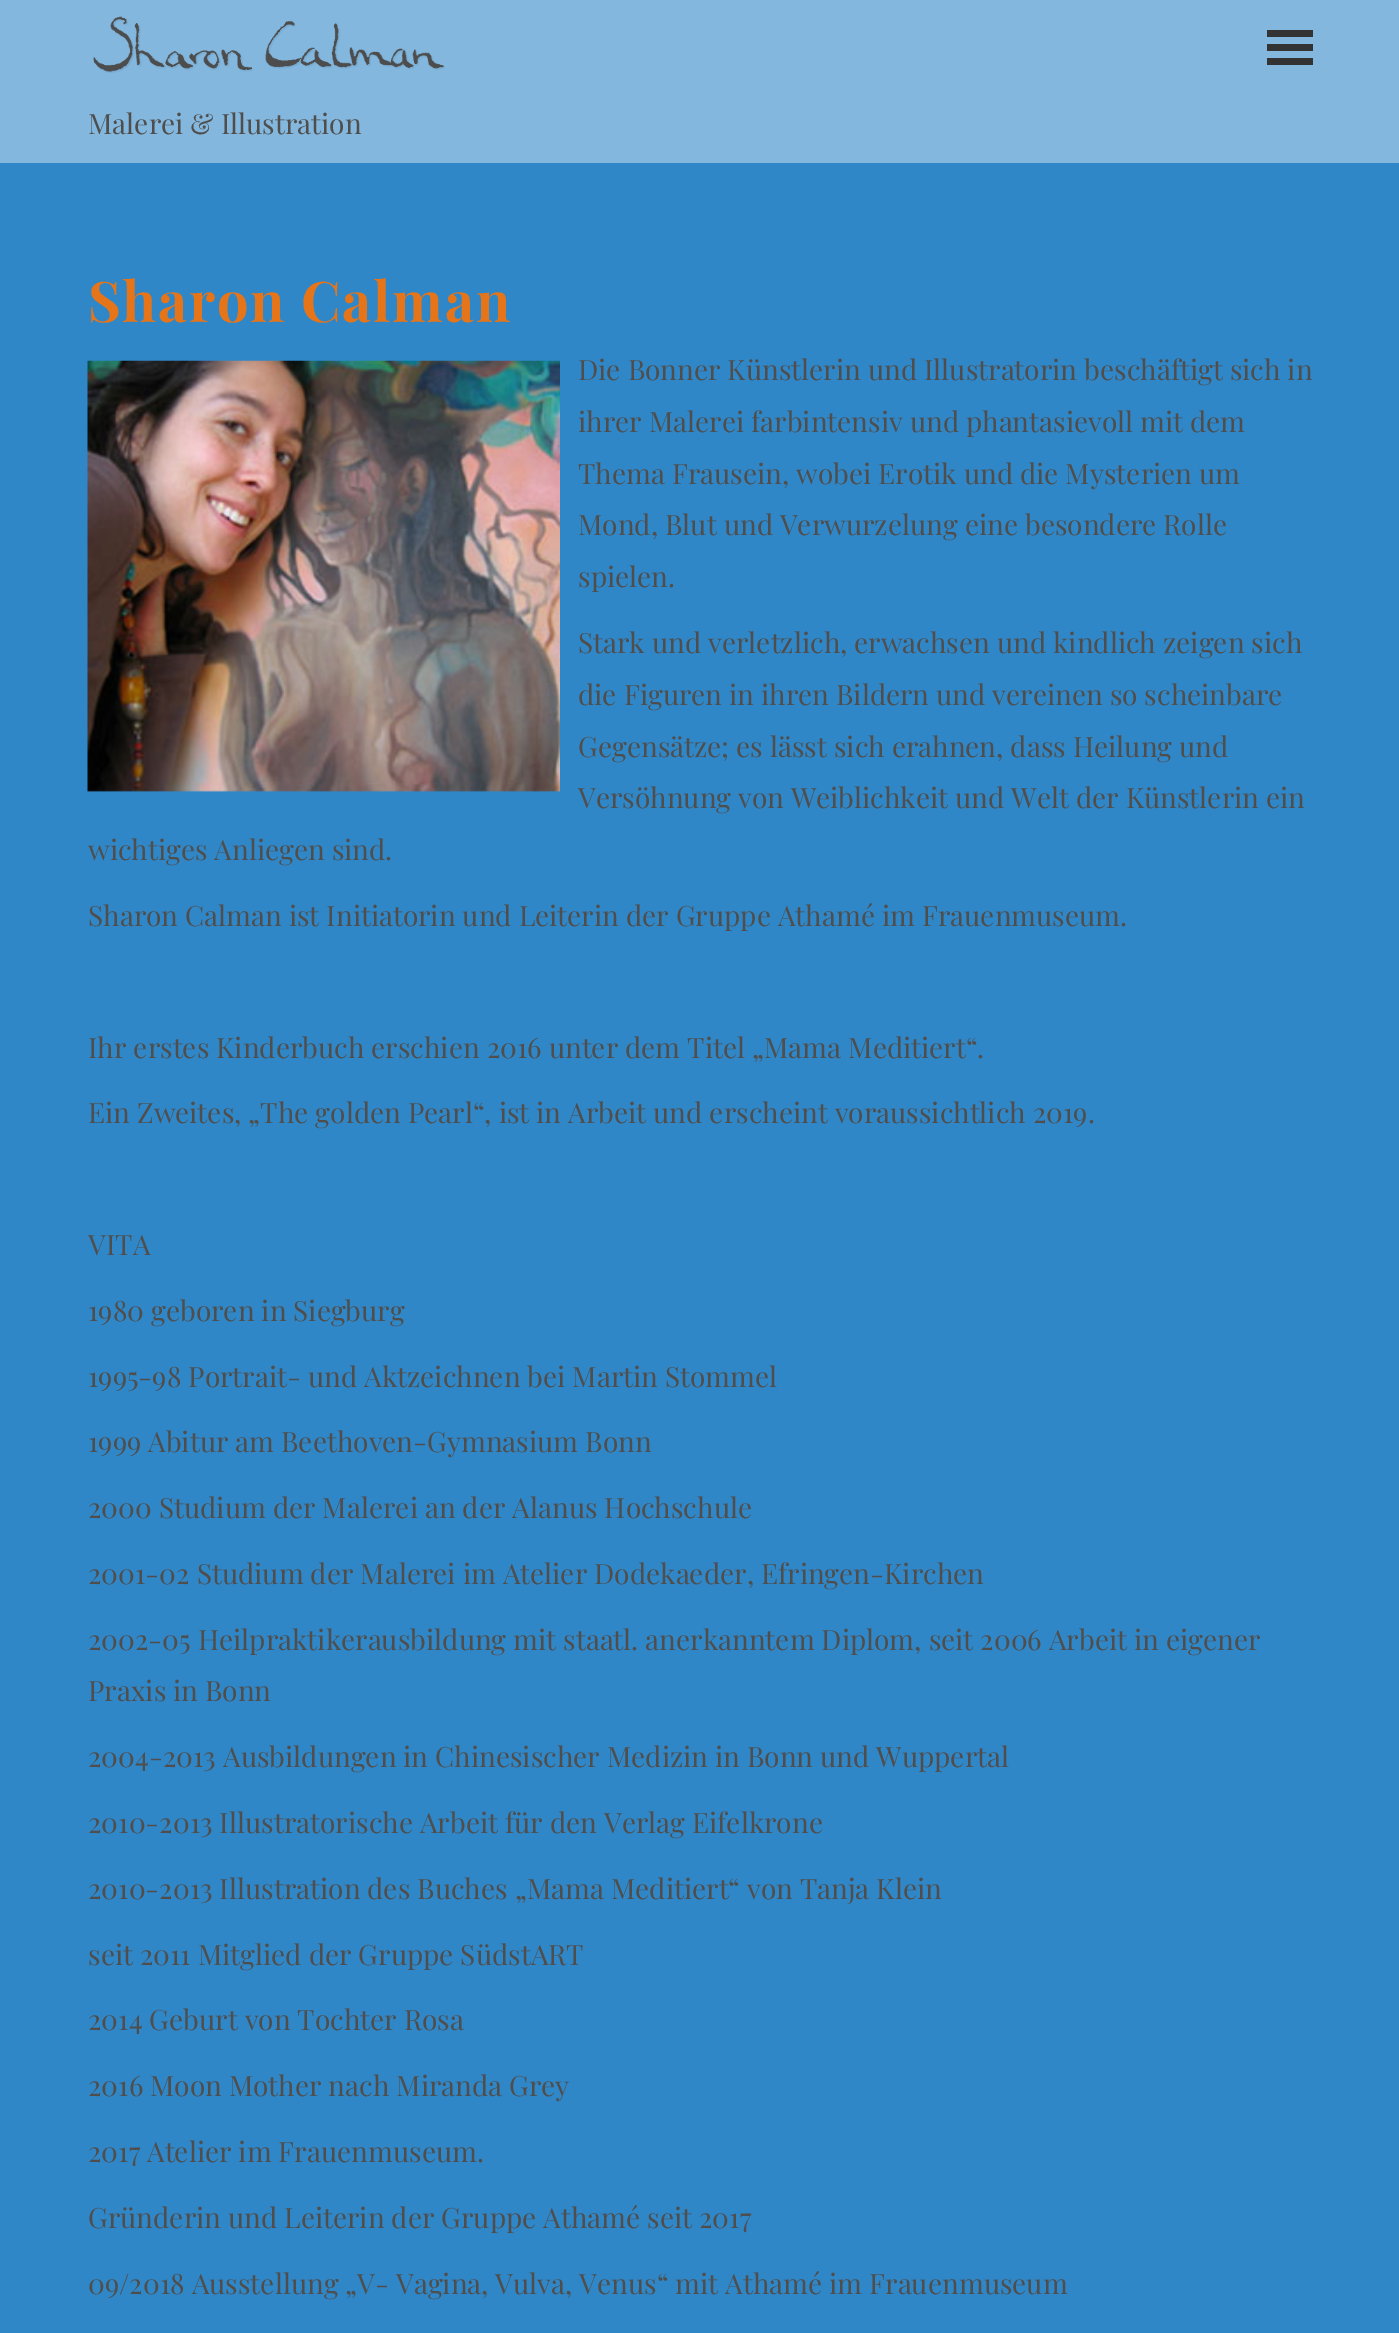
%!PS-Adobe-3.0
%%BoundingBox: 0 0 1399 2333
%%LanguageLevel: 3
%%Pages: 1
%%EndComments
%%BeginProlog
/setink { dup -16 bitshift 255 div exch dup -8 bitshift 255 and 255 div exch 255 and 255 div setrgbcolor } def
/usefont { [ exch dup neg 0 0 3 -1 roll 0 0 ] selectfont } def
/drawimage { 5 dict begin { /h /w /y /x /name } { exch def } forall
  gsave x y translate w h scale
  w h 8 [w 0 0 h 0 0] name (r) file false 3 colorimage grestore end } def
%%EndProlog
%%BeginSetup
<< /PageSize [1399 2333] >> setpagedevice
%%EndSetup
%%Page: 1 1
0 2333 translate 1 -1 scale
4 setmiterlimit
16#3087C8 setink
0 0 1399 2333 rectfill
[
    [0 0 1399 163 16#83B7DE]
    [1267 30 46 7 16#333333]
    [1267 44 46 7 16#333333]
    [1267 58 46 7 16#333333]
] { aload pop setink rectfill } forall
(img1.raw) 93 16 352 57 drawimage
/PlayfairDisplay-Regular 28 usefont
16#4F4E4C setink
88 134 moveto (Malerei & Illustration) show
/PlayfairDisplay-Bold 56 usefont
16#E6751A setink
88 322 moveto 1.75 0 (Sharon Calman) ashow
(img2.raw) 87 360 473 432 drawimage
/PlayfairDisplay-Regular 28 usefont
16#4F4E4C setink
[
    [(Die Bonner Künstlerin und Illustratorin beschäftigt sich in) 578 380]
    [(ihrer Malerei farbintensiv und phantasievoll mit dem) 578 432]
    [(Thema Frausein, wobei Erotik und die Mysterien um) 578 484]
    [(Mond, Blut und Verwurzelung eine besondere Rolle) 578 535]
    [(spielen.) 578 587]
    [(Stark und verletzlich, erwachsen und kindlich zeigen sich) 578 653]
    [(die Figuren in ihren Bildern und vereinen so scheinbare) 578 705]
    [(Gegensätze; es lässt sich erahnen, dass Heilung und) 578 757]
    [(Versöhnung von Weiblichkeit und Welt der Künstlerin ein) 578 808]
    [(wichtiges Anliegen sind.) 88 860]
    [(Sharon Calman ist Initiatorin und Leiterin der Gruppe Athamé im Frauenmuseum.) 88 926]
    [(Ihr erstes Kinderbuch erschien 2016 unter dem Titel „Mama Meditiert“.) 88 1058]
    [(Ein Zweites, „The golden Pearl“, ist in Arbeit und erscheint voraussichtlich 2019.) 88 1123]
    [(VITA) 88 1255]
    [(1980 geboren in Siegburg) 88 1321]
    [(1995-98 Portrait- und Aktzeichnen bei Martin Stommel) 88 1387]
    [(1999 Abitur am Beethoven-Gymnasium Bonn) 88 1452]
    [(2000 Studium der Malerei an der Alanus Hochschule) 88 1518]
    [(2001-02 Studium der Malerei im Atelier Dodekaeder, Efringen-Kirchen) 88 1584]
    [(2002-05 Heilpraktikerausbildung mit staatl. anerkanntem Diplom, seit 2006 Arbeit in eigener) 88 1650]
    [(Praxis in Bonn) 88 1701]
    [(2004-2013 Ausbildungen in Chinesischer Medizin in Bonn und Wuppertal) 88 1767]
    [(2010-2013 Illustratorische Arbeit für den Verlag Eifelkrone) 88 1833]
    [(2010-2013 Illustration des Buches „Mama Meditiert“ von Tanja Klein) 88 1899]
    [(seit 2011 Mitglied der Gruppe SüdstART) 88 1965]
    [(2014 Geburt von Tochter Rosa) 88 2030]
    [(2016 Moon Mother nach Miranda Grey) 88 2096]
    [(2017 Atelier im Frauenmuseum.) 88 2162]
    [(Gründerin und Leiterin der Gruppe Athamé seit 2017) 88 2228]
    [(09/2018 Ausstellung „V- Vagina, Vulva, Venus“ mit Athamé im Frauenmuseum) 88 2294]
] { aload pop moveto show } forall
showpage
%%EOF
